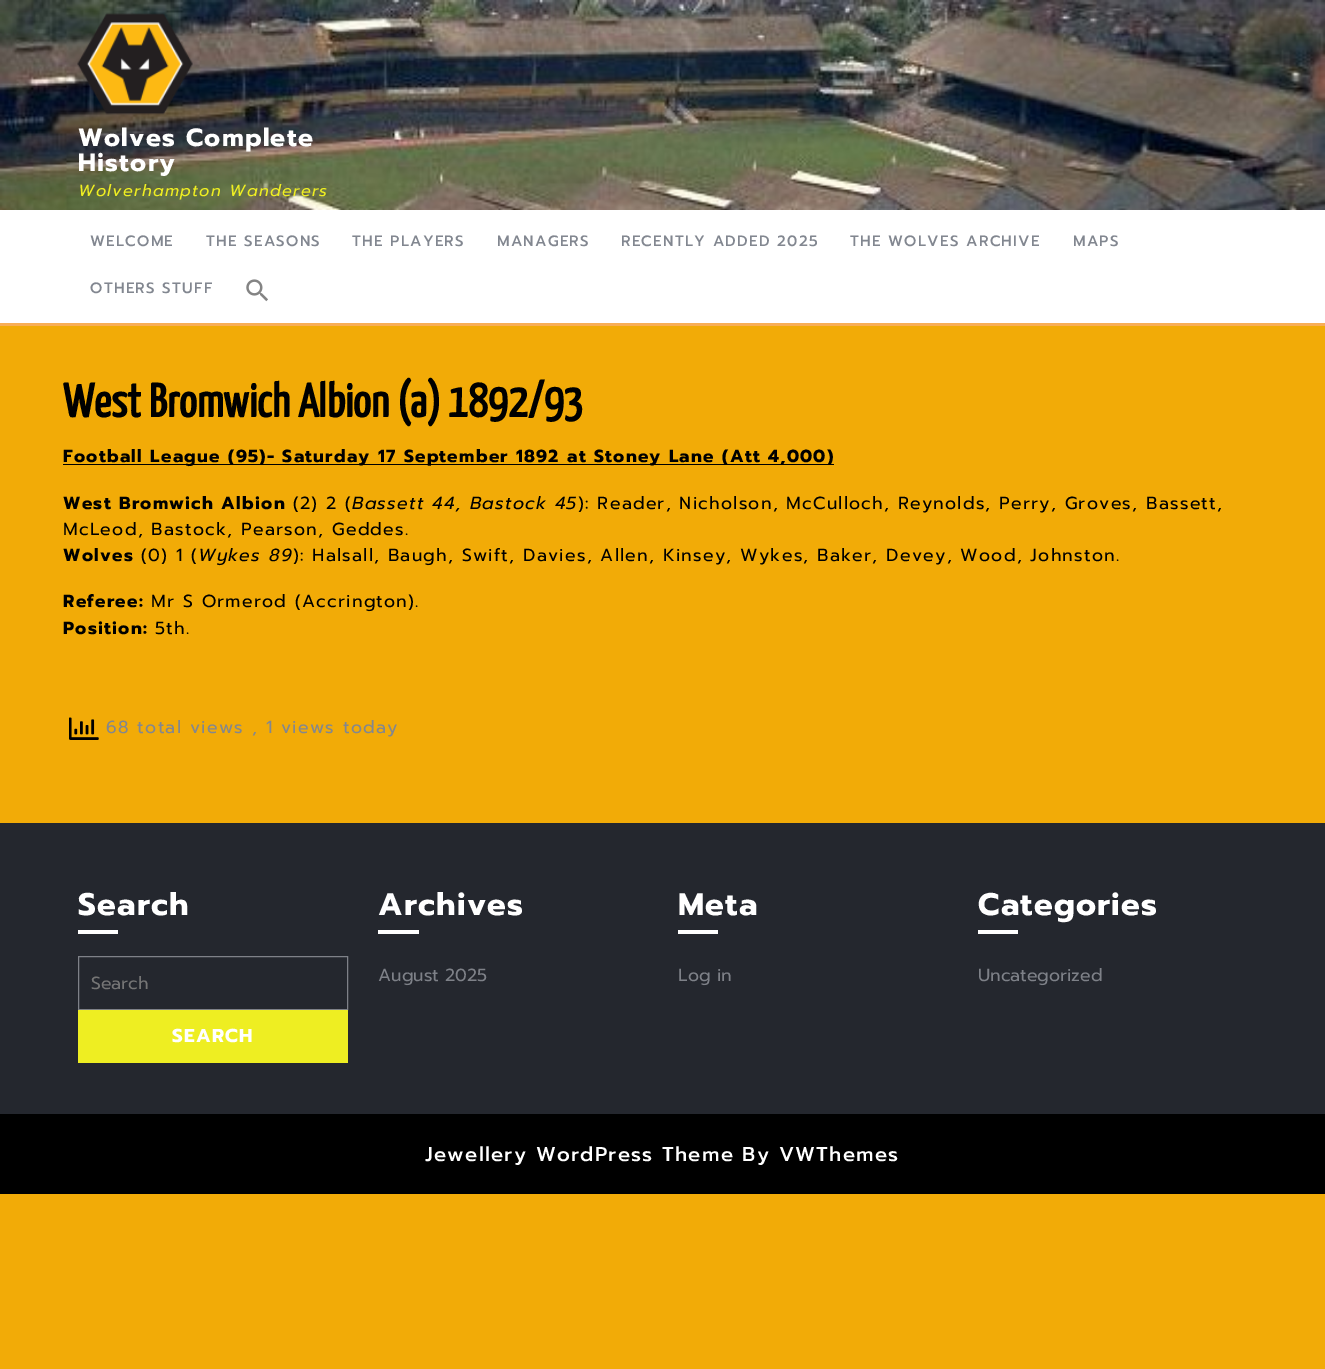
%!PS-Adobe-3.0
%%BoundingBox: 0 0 1325 1369
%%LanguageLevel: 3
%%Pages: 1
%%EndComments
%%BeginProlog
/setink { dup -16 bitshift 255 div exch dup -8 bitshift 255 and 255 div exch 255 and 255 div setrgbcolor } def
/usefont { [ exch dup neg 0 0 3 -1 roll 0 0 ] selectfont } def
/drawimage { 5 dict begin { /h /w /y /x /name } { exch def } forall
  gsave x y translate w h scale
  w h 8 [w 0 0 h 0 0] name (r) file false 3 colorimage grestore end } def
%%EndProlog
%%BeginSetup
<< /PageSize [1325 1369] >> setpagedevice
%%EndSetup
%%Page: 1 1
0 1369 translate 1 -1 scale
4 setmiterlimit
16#F2AB07 setink
0 0 1325 1369 rectfill
(img1.raw) 0 0 1325 210 drawimage
(img2.raw) 77 13 116 102 drawimage
/Prompt-Bold 25 usefont
16#FFFFFF setink
78 146 moveto 1.25 0 (Wolves Complete) ashow
78 171 moveto 1.25 0 (History) ashow
/Prompt-Italic 16.25 usefont
16#EEEE22 setink
78 196 moveto 1.25 0 (Wolverhampton Wanderers) ashow
16#FFFFFF setink
0 210 1325 113 rectfill
16#F8AE57 setink
0 323 1325 3 rectfill
/Prompt-Medium 15 usefont
16#828790 setink
90 246 moveto 1.25 0 (WELCOME) ashow
206 246 moveto 1.25 0 (THE SEASONS) ashow
352 246 moveto 1.25 0 (THE PLAYERS) ashow
497 246 moveto 1.25 0 (MANAGERS) ashow
621 246 moveto 1.25 0 (RECENTLY ADDED 2025) ashow
850 246 moveto 1.25 0 (THE WOLVES ARCHIVE) ashow
1073 246 moveto 1.25 0 (MAPS) ashow
90 293 moveto 1.25 0 (OTHERS STUFF) ashow
(img3.raw) 246 279 22 23 drawimage
/YanoneKaffeesatz-Bold 47.4 usefont
16#000000 setink
63 417 moveto (West Bromwich Albion \(a\) 1892/93) show
63 464 771 1 rectfill
/Prompt-Bold 17.5 usefont
63 462 moveto 1.25 0 (Football League \(95\)- Saturday 17 September 1892 at Stoney Lane \(Att 4,000\)) ashow
63 509 moveto 1.25 0 (West Bromwich Albion) ashow
/Prompt-Regular 17.5 usefont
293 509 moveto 1.25 0 (\(2\) 2 \() ashow
/Prompt-Italic 17.5 usefont
352 509 moveto 1.25 0 (Bassett 44, Bastock 45) ashow
/Prompt-Regular 17.5 usefont
578 509 moveto 1.25 0 (\): Reader, Nicholson, McCulloch, Reynolds, Perry, Groves, Bassett,) ashow
63 535 moveto 1.25 0 (McLeod, Bastock, Pearson, Geddes.) ashow
/Prompt-Bold 17.5 usefont
63 561 moveto 1.25 0 (Wolves) ashow
/Prompt-Regular 17.5 usefont
141 561 moveto 1.25 0 (\(0\) 1 \() ashow
/Prompt-Italic 17.5 usefont
198 561 moveto 1.25 0 (Wykes 89) ashow
/Prompt-Regular 17.5 usefont
293 561 moveto 1.25 0 (\): Halsall, Baugh, Swift, Davies, Allen, Kinsey, Wykes, Baker, Devey, Wood, Johnston.) ashow
/Prompt-Bold 17.5 usefont
63 607 moveto 1.25 0 (Referee:) ashow
/Prompt-Regular 17.5 usefont
151 607 moveto 1.25 0 (Mr S Ormerod \(Accrington\).) ashow
/Prompt-Bold 17.5 usefont
63 634 moveto 1.25 0 (Position:) ashow
/Prompt-Regular 17.5 usefont
155 634 moveto 1.25 0 (5th.) ashow
(img4.raw) 69 717 30 23 drawimage
16#828790 setink
106 733 moveto 1.25 0 (68 total views , 1 views today) ashow
16#24272E setink
0 823 1325 291 rectfill
/Prompt-Bold 31.25 usefont
16#FFFFFF setink
78 915 moveto 1.25 0 (Search) ashow
78 930 40 4 rectfill
16#7E8188 setink
78.5 956.5 269 53 rectstroke
/Prompt-Regular 17.5 usefont
16#757575 setink
91 989 moveto (Search) show
16#EEEE22 setink
78 1010 270 53 rectfill
/Prompt-Bold 18.75 usefont
16#FFFFFF setink
172 1042 moveto 1.25 0 (SEARCH) ashow
/Prompt-Bold 31.25 usefont
378 915 moveto 1.25 0 (Archives) ashow
378 930 41 4 rectfill
/Prompt-Regular 17.5 usefont
16#7E8188 setink
378 981 moveto (August 2025) show
/Prompt-Bold 31.25 usefont
16#FFFFFF setink
678 915 moveto 1.25 0 (Meta) ashow
678 930 40 4 rectfill
/Prompt-Regular 17.5 usefont
16#7E8188 setink
678 981 moveto (Log in) show
/Prompt-Bold 31.25 usefont
16#FFFFFF setink
978 915 moveto 1.25 0 (Categories) ashow
978 930 40 4 rectfill
/Prompt-Regular 17.5 usefont
16#7E8188 setink
978 981 moveto (Uncategorized) show
16#000000 setink
0 1114 1325 80 rectfill
/Prompt-Medium 20 usefont
16#FFFFFF setink
425 1161 moveto 1.25 0 (Jewellery WordPress Theme By VWThemes) ashow
showpage
%%EOF
